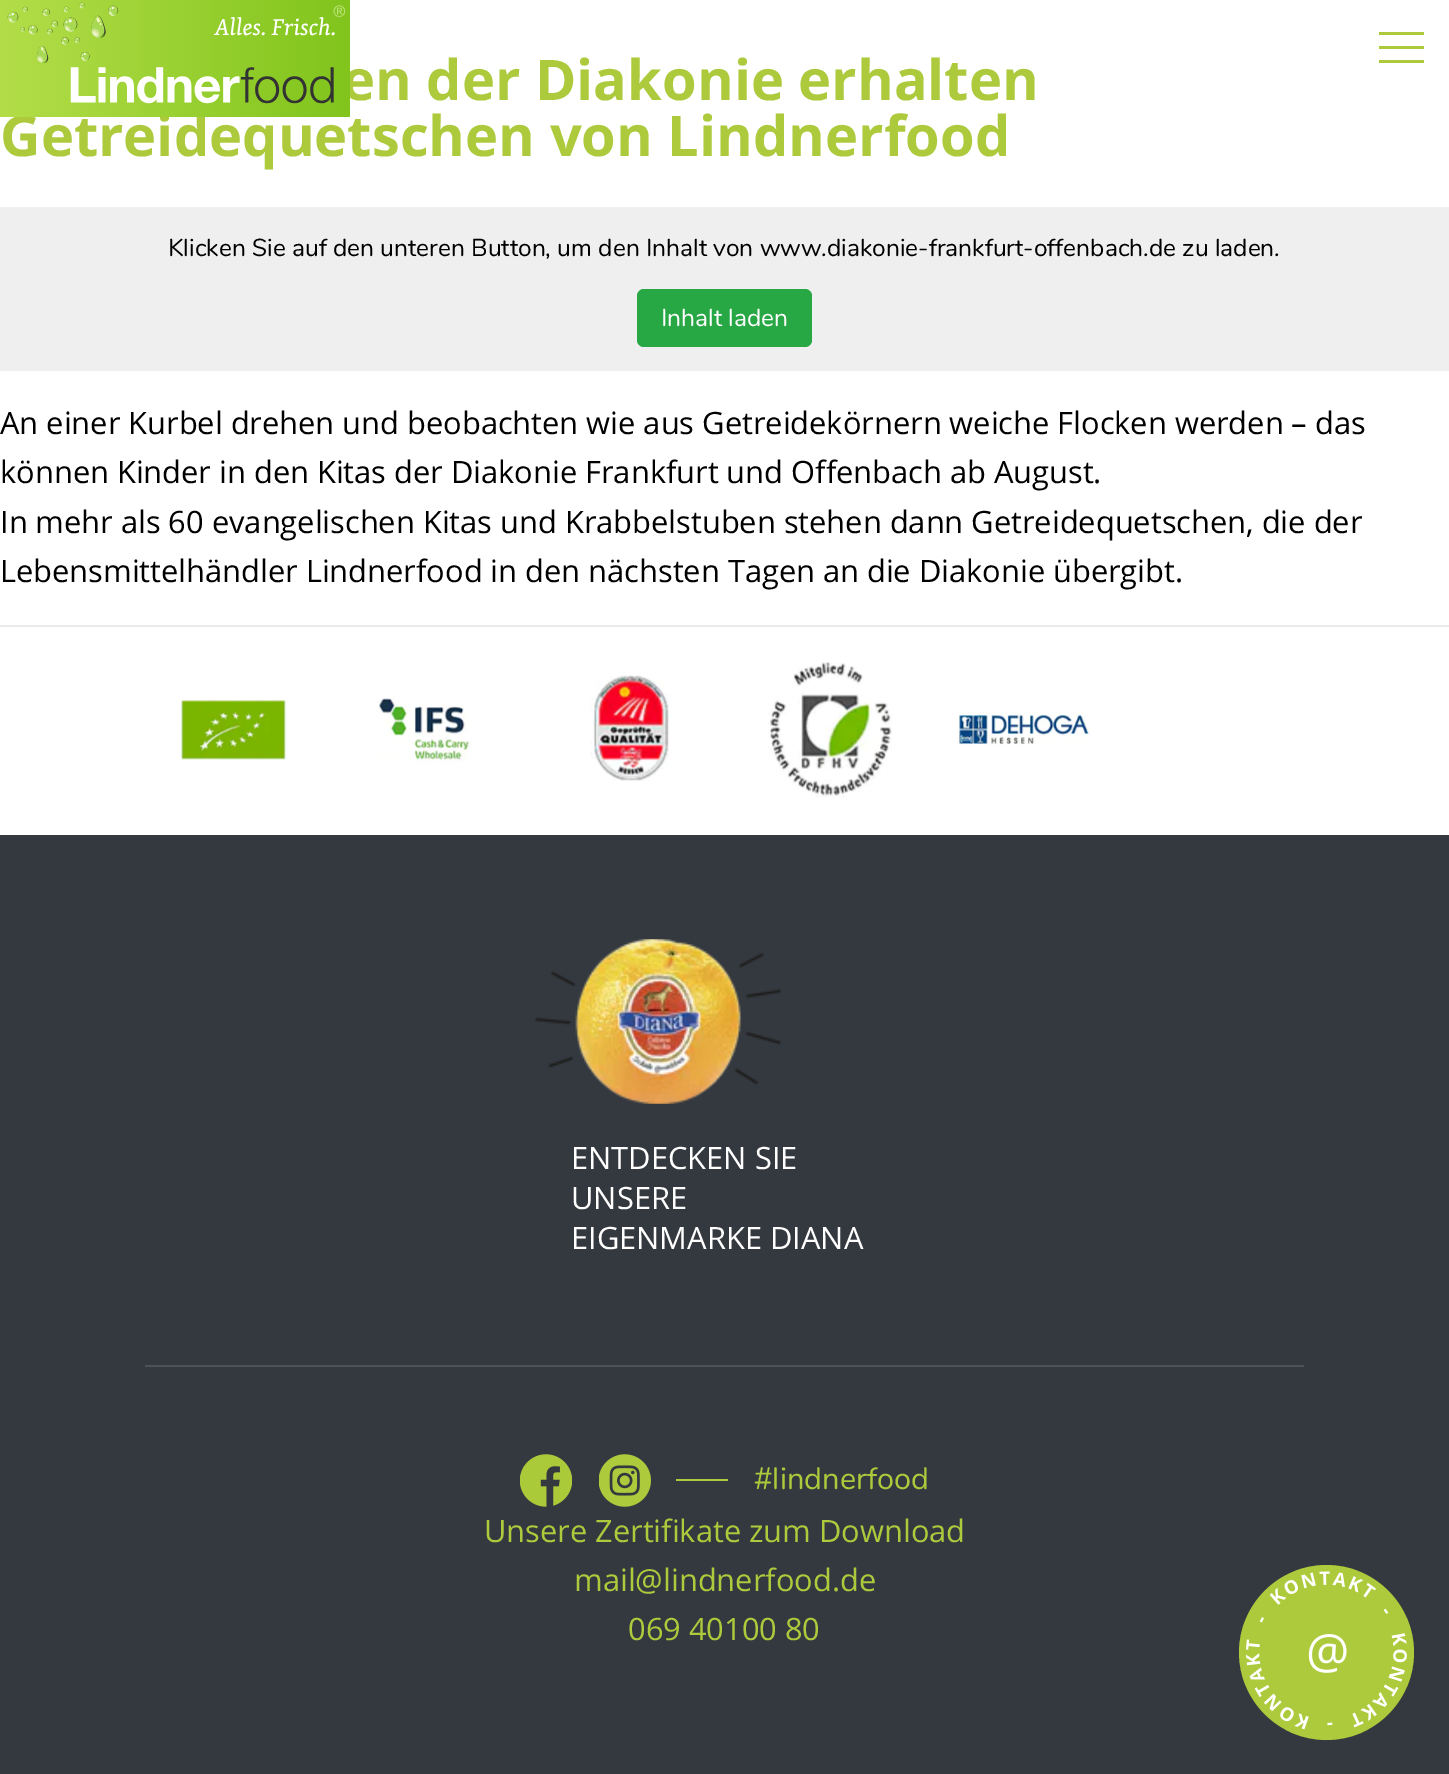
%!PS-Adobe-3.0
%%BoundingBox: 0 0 1449 1774
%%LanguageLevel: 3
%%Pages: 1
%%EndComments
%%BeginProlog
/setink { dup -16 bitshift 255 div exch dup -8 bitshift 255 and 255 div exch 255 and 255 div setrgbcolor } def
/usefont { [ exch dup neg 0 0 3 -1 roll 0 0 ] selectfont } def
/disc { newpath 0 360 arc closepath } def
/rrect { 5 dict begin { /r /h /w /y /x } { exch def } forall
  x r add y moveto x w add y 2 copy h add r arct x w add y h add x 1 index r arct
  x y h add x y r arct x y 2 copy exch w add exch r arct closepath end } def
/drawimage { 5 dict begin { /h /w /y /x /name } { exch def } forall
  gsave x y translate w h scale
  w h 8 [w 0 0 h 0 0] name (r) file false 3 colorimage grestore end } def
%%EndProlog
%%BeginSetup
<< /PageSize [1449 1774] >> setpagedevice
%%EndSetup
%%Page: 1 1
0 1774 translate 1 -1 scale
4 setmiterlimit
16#FFFFFF setink
0 0 1449 1774 rectfill
/OpenSans-Bold 56 usefont
16#ACCA3B setink
342 100 moveto (en der Diakonie erhalten) show
0 156 moveto (Getreidequetschen von Lindnerfood) show
(img1.raw) 0 0 350 117 drawimage
[
    [1379 32 45 3 16#ACCA3B]
    [1379 46 45 3 16#ACCA3B]
    [1379 60 45 3 16#ACCA3B]
    [0 207 1449 164 16#EFEFEF]
] { aload pop setink rectfill } forall
/Nunito-Regular 24.5 usefont
16#000000 setink
168 256 moveto (Klicken Sie auf den unteren Button, um den Inhalt von www.diakonie-frankfurt-offenbach.de zu laden.) show
16#28A745 setink
637 289 175 58 7 rrect fill
16#FFFFFF setink
661 326 moveto (Inhalt laden) show
/OpenSans-Regular 30.8 usefont
16#000000 setink
[
    [(An einer Kurbel drehen und beobachten wie aus Getreidekörnern weiche Flocken werden – das) 0 434]
    [(können Kinder in den Kitas der Diakonie Frankfurt und Offenbach ab August.) 0 483]
    [(In mehr als 60 evangelischen Kitas und Krabbelstuben stehen dann Getreidequetschen, die der) 0 533]
    [(Lebensmittelhändler Lindnerfood in den nächsten Tagen an die Diakonie übergibt.) 0 582]
] { aload pop moveto show } forall
16#343940 setink
0 835 1449 939 rectfill
16#EAEAEA setink
0 625 1449 2 rectfill
(img2.raw) 180 699 109 62 drawimage
(img3.raw) 378 698 95 65 drawimage
(img4.raw) 590 671 82 110 drawimage
(img5.raw) 768 662 124 136 drawimage
(img6.raw) 958 711 133 34 drawimage
(img7.raw) 535 939 246 165 drawimage
16#FFFFFF setink
[
    [(ENTDECKEN SIE) 571 1169]
    [(UNSERE) 571 1209]
    [(EIGENMARKE DIANA) 571 1249]
] { aload pop moveto show } forall
16#4B525C setink
145 1365 1159 2 rectfill
(img8.raw) 520 1454 52 53 drawimage
(img9.raw) 599 1454 52 53 drawimage
16#ACCA3B setink
676 1479 52 2 rectfill
/Nunito-Regular 30.8 usefont
754 1489 moveto (#lindnerfood) show
/OpenSans-Regular 30.8 usefont
[
    [(Unsere Zertifikate zum Download) 484 1542]
    [(mail@lindnerfood.de) 574 1591]
    [(069 40100 80) 628 1640]
] { aload pop moveto show } forall
1326.5 1652.5 87.5 disc fill
(img10.raw) 1245 1571 162 159 drawimage
(img11.raw) 1308 1634 39 39 drawimage
showpage
%%EOF
